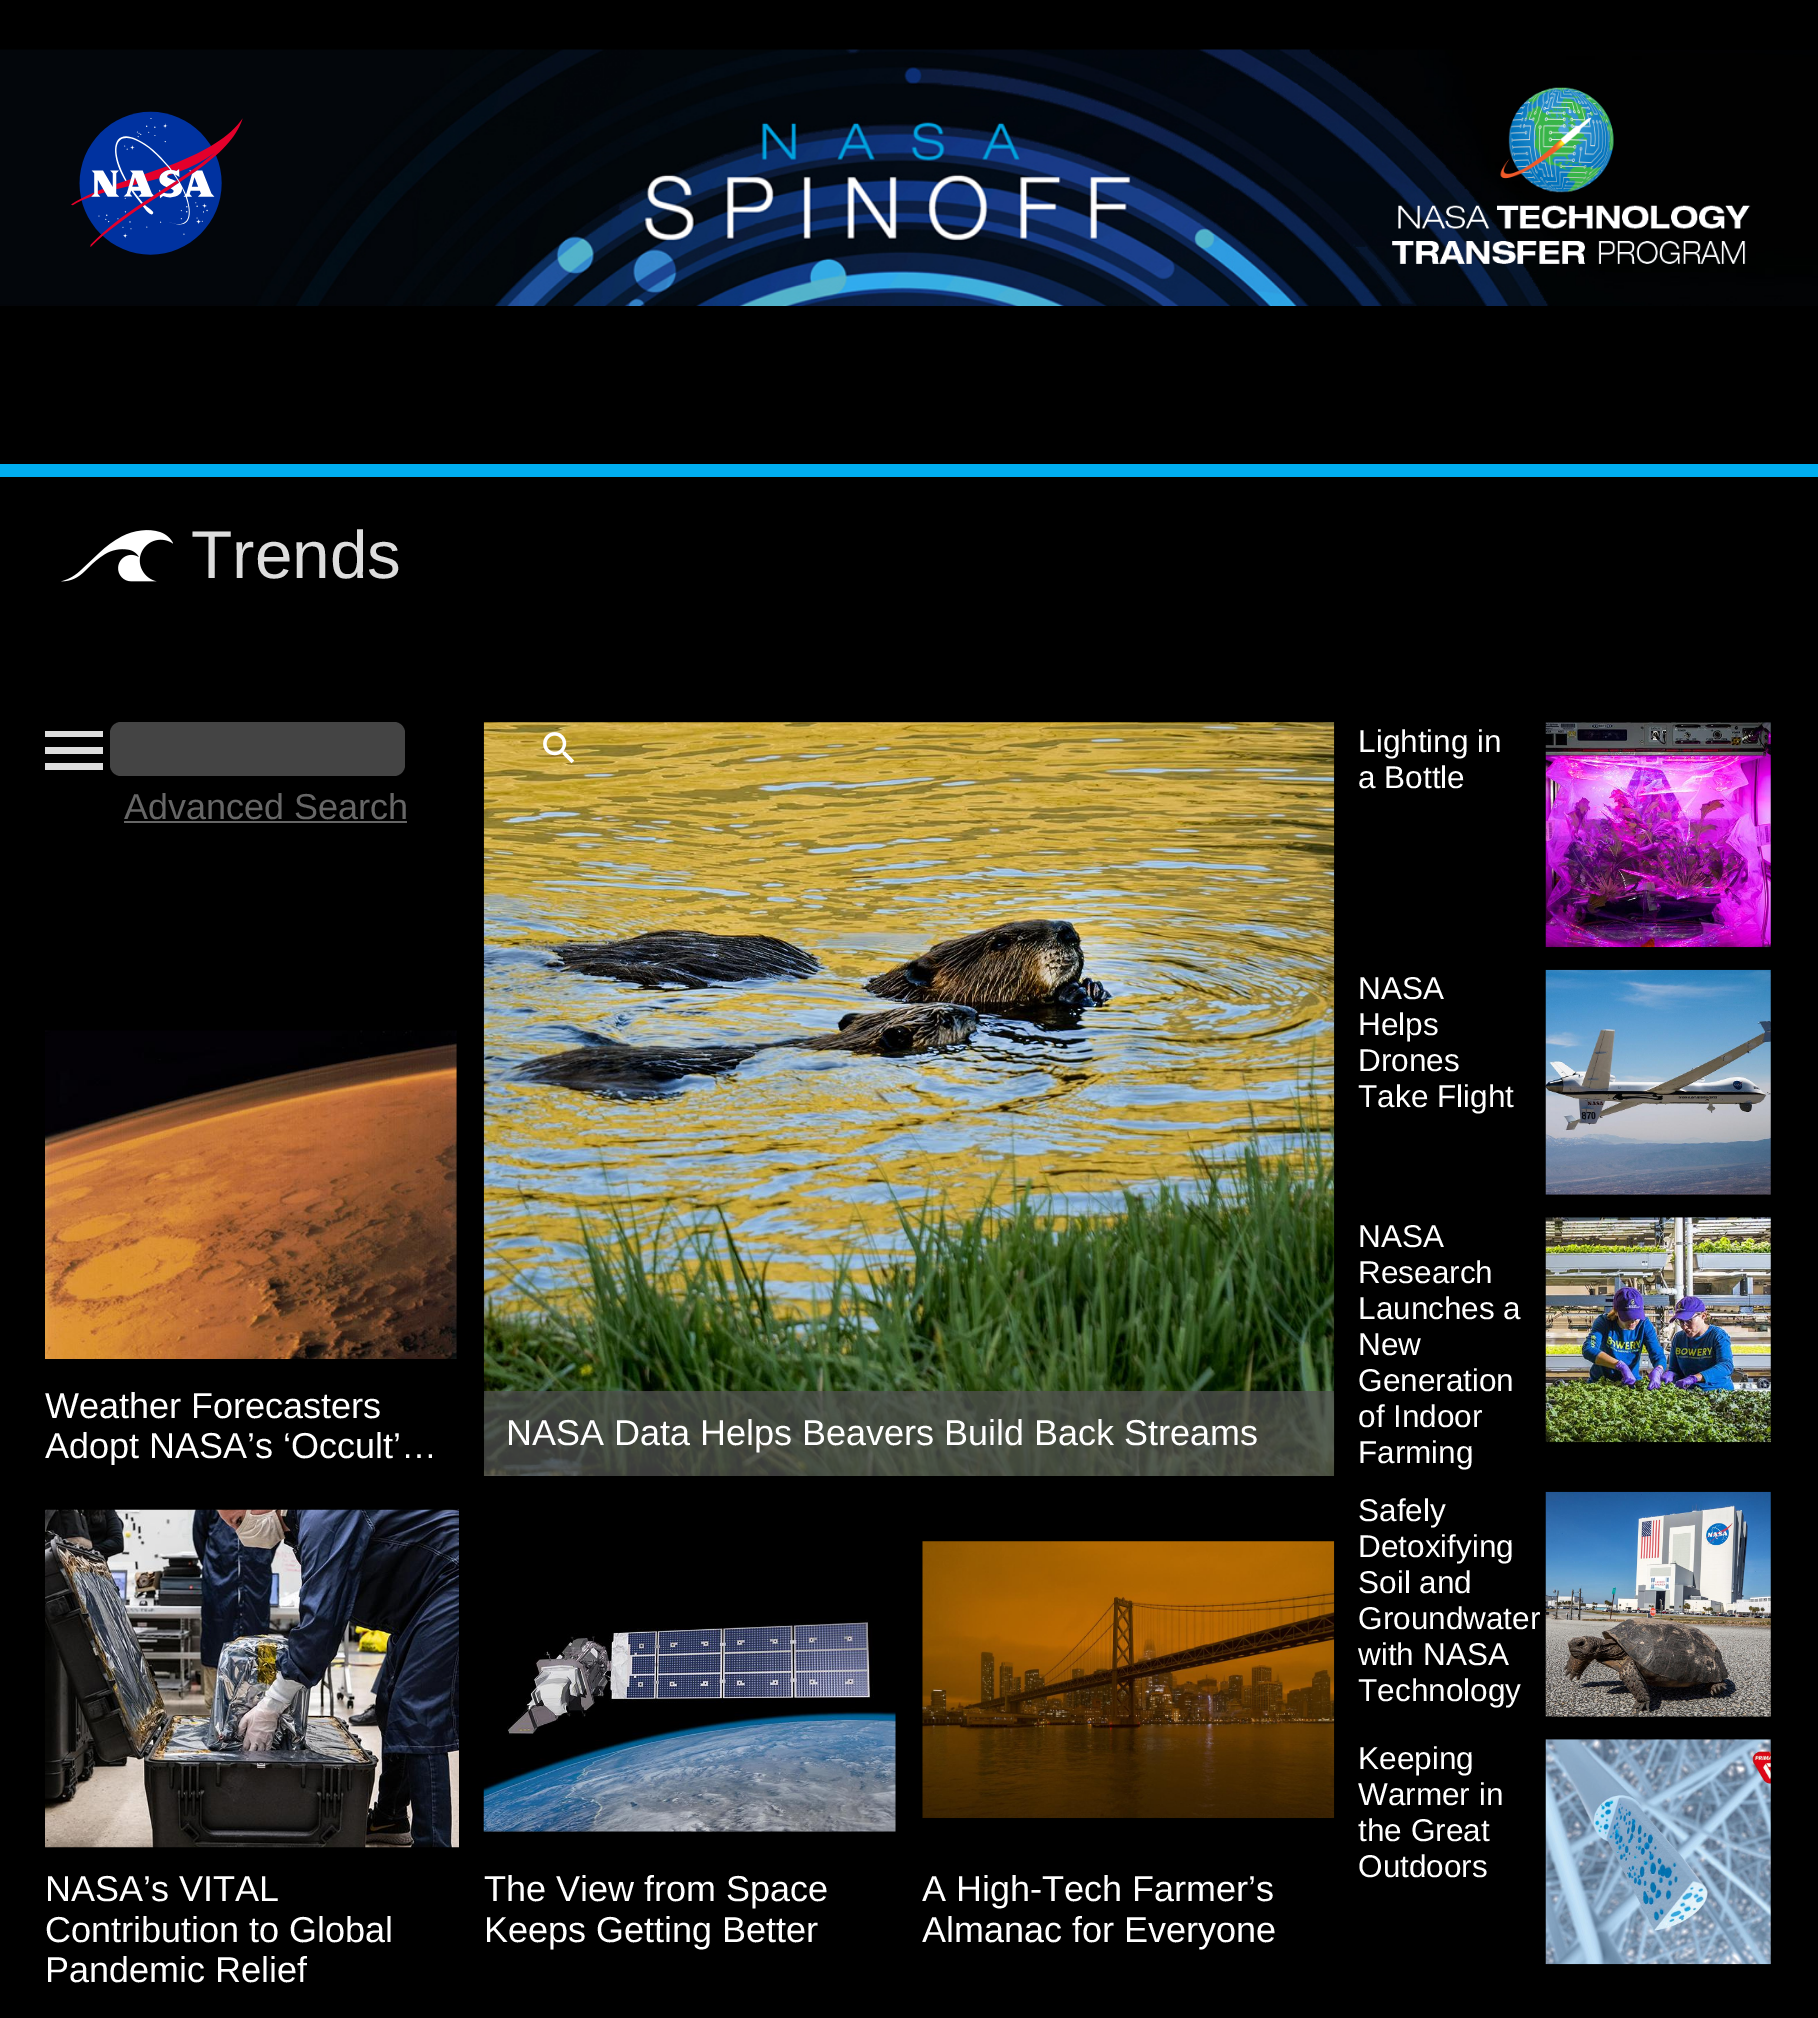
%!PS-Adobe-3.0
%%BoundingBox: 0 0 1818 2018
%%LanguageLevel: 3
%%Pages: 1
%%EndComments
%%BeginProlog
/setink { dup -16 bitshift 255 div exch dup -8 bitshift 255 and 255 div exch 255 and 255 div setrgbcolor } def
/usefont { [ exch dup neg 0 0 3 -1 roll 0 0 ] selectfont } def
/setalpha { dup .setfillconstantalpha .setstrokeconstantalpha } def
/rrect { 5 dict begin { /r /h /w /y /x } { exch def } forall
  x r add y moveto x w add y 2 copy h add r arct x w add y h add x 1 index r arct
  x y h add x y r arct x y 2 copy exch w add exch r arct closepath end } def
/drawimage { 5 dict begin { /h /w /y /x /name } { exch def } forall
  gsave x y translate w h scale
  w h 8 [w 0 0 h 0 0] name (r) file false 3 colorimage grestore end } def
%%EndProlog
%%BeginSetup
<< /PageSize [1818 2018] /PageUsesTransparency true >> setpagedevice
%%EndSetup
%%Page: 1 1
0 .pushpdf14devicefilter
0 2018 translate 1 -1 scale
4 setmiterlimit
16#000000 setink
0 0 1818 2018 rectfill
16#00ADF0 setink
0 464 1818 13 rectfill
(img1.raw) 0 49 1818 257 drawimage
(img2.raw) 71 111 172 144 drawimage
(img3.raw) 1392 87 359 178 drawimage
(img4.raw) 61 530 112 52 drawimage
/LiberationSans-Regular 67.5 usefont
16#DDDDDD setink
191 578 moveto (Trends) show
gsave
45 722 1289 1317 rectclip
44 731 moveto 103 731 lineto 103 737 lineto 44 737 lineto closepath 44 754 moveto 44 747 lineto 103 747 lineto 103 754 lineto closepath 44 770 moveto 44 763 lineto 103 763 lineto 103 770 lineto closepath fill
grestore
16#444444 setink
110 722 295 54 11 rrect fill
(img7.raw) 483 722 852 754 drawimage
(img5.raw) 543 732 32 32 drawimage
/LiberationSans-Regular 36 usefont
16#666666 setink
124 819 moveto (Advanced Search) show
124 821 283 2 rectfill
(img6.raw) 45 1030 412 329 drawimage
16#FFFFFF setink
45 1418 moveto (Weather Forecasters) show
gsave
45 1364 412 101 rectclip
45 1458 moveto (Adopt NASA’s ‘Occult’…) show
grestore
0.75 setalpha
16#505050 setink
484 1391 850 85 rectfill
1 setalpha
16#FFFFFF setink
506 1445 moveto (NASA Data Helps Beavers Build Back Streams) show
(img8.raw) 45 1509 414 339 drawimage
[
    [(NASA’s VITAL) 45 1901]
    [(Contribution to Global) 45 1942]
    [(Pandemic Relief) 45 1982]
] { aload pop moveto show } forall
(img9.raw) 483 1619 413 213 drawimage
484 1901 moveto (The View from Space) show
484 1942 moveto (Keeps Getting Better) show
(img10.raw) 922 1541 413 277 drawimage
922 1901 moveto (A High-Tech Farmer’s) show
922 1942 moveto (Almanac for Everyone) show
/LiberationSans-Regular 31.5 usefont
1358 752 moveto (Lighting in) show
1358 788 moveto (a Bottle) show
(img11.raw) 1545 722 226 226 drawimage
[
    [(NASA) 1358 999]
    [(Helps) 1358 1035]
    [(Drones) 1358 1071]
    [(Take Flight) 1358 1107]
] { aload pop moveto show } forall
(img12.raw) 1545 969 226 226 drawimage
[
    [(NASA) 1358 1247]
    [(Research) 1358 1283]
    [(Launches a) 1358 1319]
    [(New) 1358 1355]
    [(Generation) 1358 1391]
    [(of Indoor) 1358 1427]
    [(Farming) 1358 1463]
] { aload pop moveto show } forall
(img13.raw) 1545 1217 226 226 drawimage
[
    [(Safely) 1358 1521]
    [(Detoxifying) 1358 1557]
    [(Soil and) 1358 1593]
    [(Groundwater) 1358 1629]
    [(with NASA) 1358 1665]
    [(Technology) 1358 1701]
] { aload pop moveto show } forall
(img14.raw) 1545 1491 226 226 drawimage
[
    [(Keeping) 1358 1769]
    [(Warmer in) 1358 1805]
    [(the Great) 1358 1841]
    [(Outdoors) 1358 1877]
] { aload pop moveto show } forall
(img15.raw) 1545 1739 226 226 drawimage
.poppdf14devicefilter showpage
%%EOF
